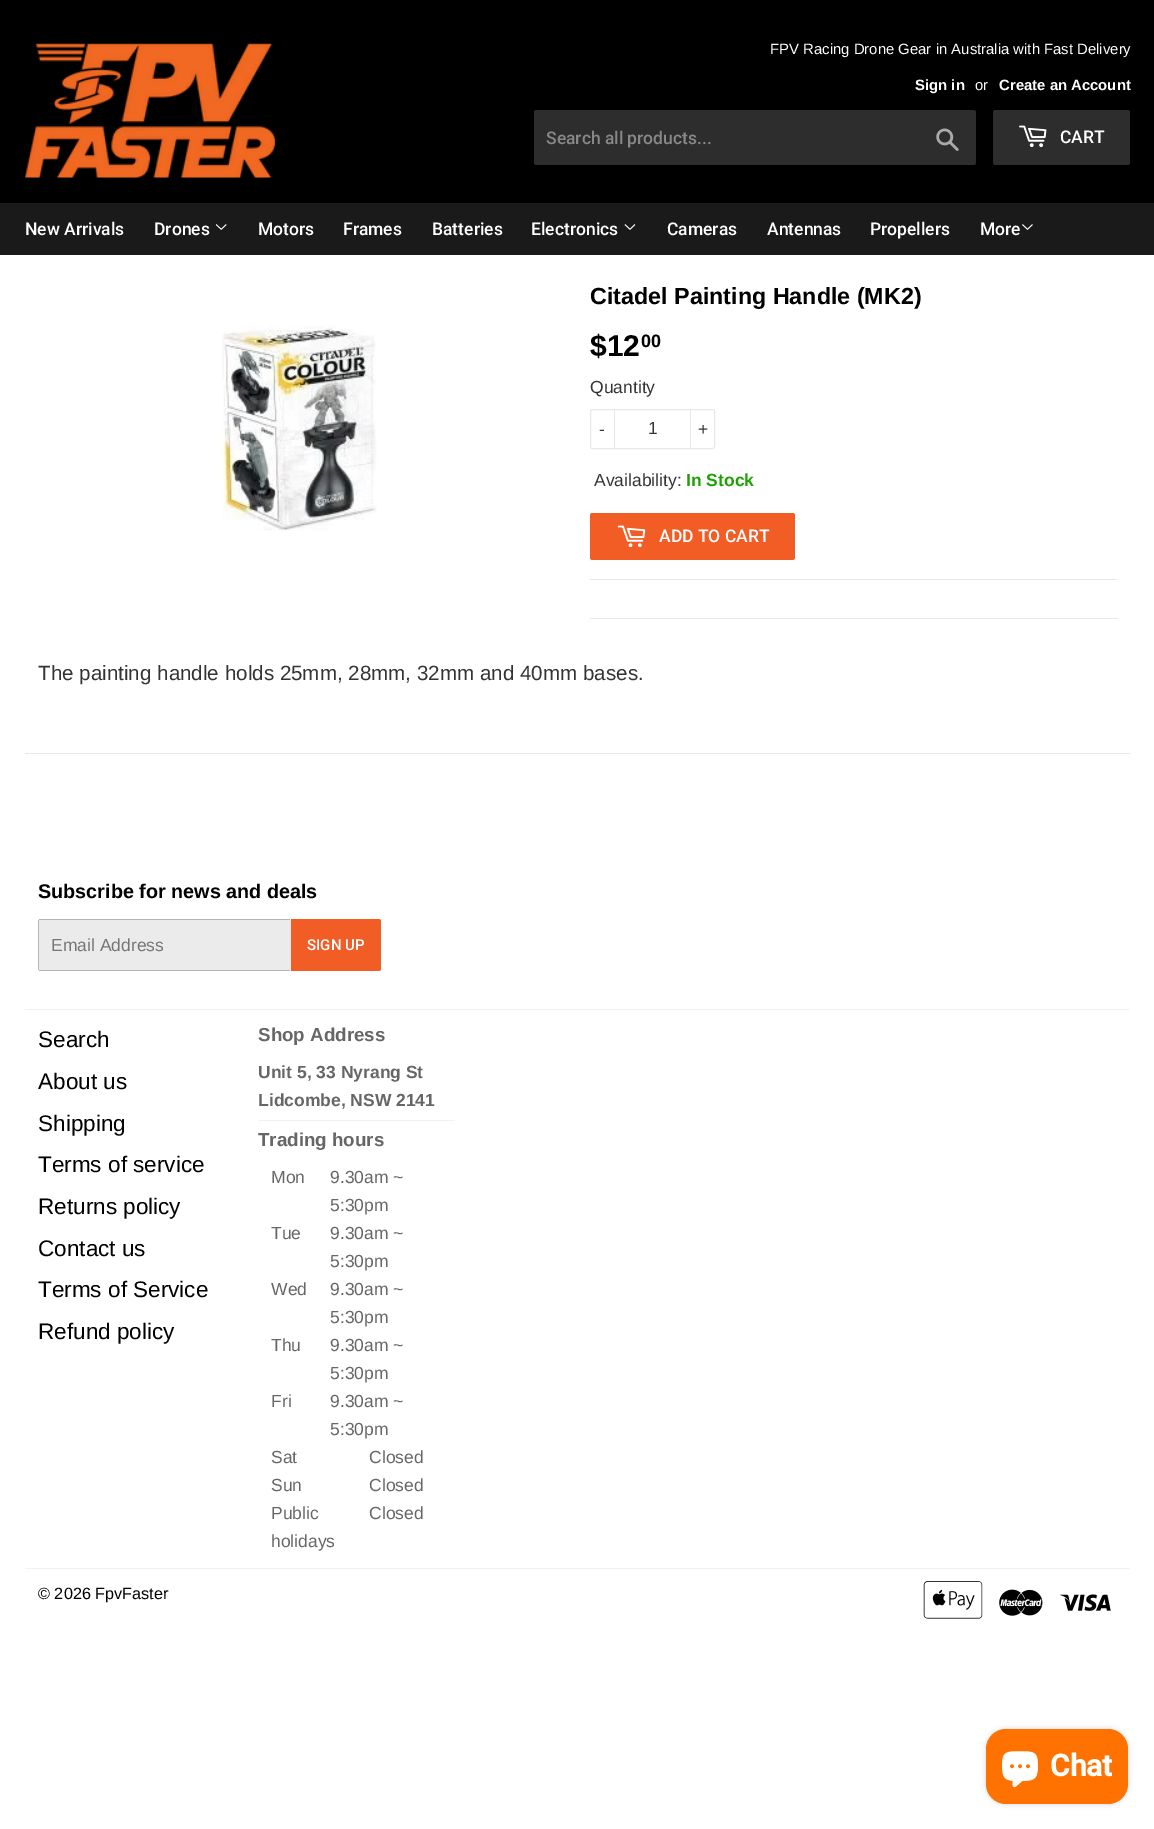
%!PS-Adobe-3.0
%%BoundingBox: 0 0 1154 1829
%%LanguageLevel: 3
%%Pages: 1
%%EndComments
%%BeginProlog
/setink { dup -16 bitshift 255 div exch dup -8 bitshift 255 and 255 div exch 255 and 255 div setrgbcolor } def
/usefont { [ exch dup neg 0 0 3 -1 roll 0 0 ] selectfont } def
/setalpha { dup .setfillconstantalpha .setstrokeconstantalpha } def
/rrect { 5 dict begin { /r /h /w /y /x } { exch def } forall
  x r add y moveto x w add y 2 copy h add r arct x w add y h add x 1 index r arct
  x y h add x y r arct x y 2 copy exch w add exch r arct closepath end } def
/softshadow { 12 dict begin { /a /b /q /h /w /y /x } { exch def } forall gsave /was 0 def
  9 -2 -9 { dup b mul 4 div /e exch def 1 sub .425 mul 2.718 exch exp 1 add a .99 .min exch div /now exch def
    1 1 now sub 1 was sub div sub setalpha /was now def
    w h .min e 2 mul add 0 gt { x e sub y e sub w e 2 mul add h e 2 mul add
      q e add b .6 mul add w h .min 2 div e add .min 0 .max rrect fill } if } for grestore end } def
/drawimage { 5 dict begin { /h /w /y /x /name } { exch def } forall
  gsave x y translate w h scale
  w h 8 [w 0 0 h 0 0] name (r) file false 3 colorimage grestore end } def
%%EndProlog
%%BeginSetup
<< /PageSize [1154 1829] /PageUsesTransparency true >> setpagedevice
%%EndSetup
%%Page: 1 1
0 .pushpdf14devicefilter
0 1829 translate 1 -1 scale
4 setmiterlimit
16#FFFFFF setink
0 0 1154 1829 rectfill
16#000000 setink
0 0 1154 203 rectfill
(img1.raw) 25 43 250 135 drawimage
/LiberationSans-Regular 14.9 usefont
16#FFFFFF setink
770 54 moveto (FPV Racing Drone Gear in Australia with Fast Delivery) show
/LiberationSans-Bold 14.9 usefont
915 90 moveto (Sign in) show
/LiberationSans-Regular 14.9 usefont
975 90 moveto (or) show
/LiberationSans-Bold 14.9 usefont
999 90 moveto (Create an Account) show
16#2D2D2D setink
534 110 442 55 2.5 rrect fill
/Roboto-Medium 17.5 usefont
16#888888 setink
546 144 moveto (Search all products...) show
(img2.raw) 936 128 23 23 drawimage
16#2D2D2D setink
993 110 137 55 2.5 rrect fill
(img3.raw) 1019 125 28 23 drawimage
16#FFFFFF setink
1060 143 moveto (CART) show
16#1A1A1A setink
0 203 1154 52 rectfill
16#FFFFFF setink
25 235 moveto (New Arrivals) show
154 235 moveto (Drones) show
(img4.raw) 215 224 12 6 drawimage
[
    [(Motors) 258 235]
    [(Frames) 343 235]
    [(Batteries) 432 235]
    [(Electronics) 531 235]
] { aload pop moveto show } forall
(img5.raw) 624 224 12 6 drawimage
[
    [(Cameras) 667 235]
    [(Antennas) 767 235]
    [(Propellers) 870 235]
    [(More) 980 235]
] { aload pop moveto show } forall
(img6.raw) 1022 224 11 6 drawimage
(img7.raw) 222 325 155 206 drawimage
/LiberationSans-Bold 23.3 usefont
16#000000 setink
590 304 moveto (Citadel Painting Handle \(MK2\)) show
/LiberationSans-Bold 30 usefont
590 356 moveto ($12) show
/LiberationSans-Bold 18 usefont
641 347 moveto (00) show
/LiberationSans-Regular 17.5 usefont
16#343434 setink
590 393 moveto (Quantity) show
16#E8E8E8 setink
590.5 409.5 124 39 2 rrect stroke
614 409 1 40 rectfill
16#343434 setink
599 435 moveto (-) show
648 434 moveto (1) show
16#E8E8E8 setink
690 409 1 40 rectfill
16#343434 setink
698 435 moveto (+) show
594 486 moveto (Availability:) show
/LiberationSans-Bold 17.5 usefont
16#1BA100 setink
686 486 moveto (In Stock) show
16#F15D25 setink
590 513 205 47 2.5 rrect fill
(img8.raw) 617 525 29 23 drawimage
/Roboto-Medium 17.5 usefont
16#FFFFFF setink
659 542 moveto (ADD TO CART) show
16#E8E8E8 setink
590 579 528 1 rectfill
590 618 528 1 rectfill
/LiberationSans-Regular 20.6 usefont
16#343434 setink
38 680 moveto (The painting handle holds 25mm, 28mm, 32mm and 40mm bases.) show
16#E8E8E8 setink
25 753 1105 1 rectfill
/LiberationSans-Bold 19.8 usefont
16#000000 setink
38 898 moveto (Subscribe for news and deals) show
16#EBEBEB setink
38 919 253 52 2.5 rrect fill
[
    [39 919 251 1 16#B5B5B5]
    [39 970 251 1 16#B5B5B5]
    [38 920 1 50 16#B5B5B5]
] { aload pop setink rectfill } forall
/LiberationSans-Regular 17.5 usefont
16#757575 setink
51 951 moveto (Email Address) show
16#F15D25 setink
291 919 moveto 378.5 919 lineto 380 919 381 920 381 921.5 curveto 381 968.5 lineto 381 970 380 971 378.5 971 curveto 291 971 lineto closepath fill
/Roboto-Medium 15 usefont
16#FFFFFF setink
307 950 moveto (SIGN UP) show
16#F2F2F2 setink
25 1009 1105 1 rectfill
/LiberationSans-Regular 22.5 usefont
16#000000 setink
[
    [(Search) 38 1047]
    [(About us) 38 1089]
    [(Shipping) 38 1131]
    [(Terms of service) 38 1172]
    [(Returns policy) 38 1214]
    [(Contact us) 38 1256]
    [(Terms of Service) 38 1297]
    [(Refund policy) 38 1339]
] { aload pop moveto show } forall
/LiberationSans-Bold 18.75 usefont
16#666666 setink
258 1041 moveto (Shop Address) show
/LiberationSans-Bold 17.5 usefont
258 1078 moveto (Unit 5, 33 Nyrang St) show
258 1106 moveto (Lidcombe, NSW 2141) show
16#F2F2F2 setink
259 1120 196 1 rectfill
/LiberationSans-Bold 18.75 usefont
16#666666 setink
258 1146 moveto (Trading hours) show
/LiberationSans-Regular 17.5 usefont
[
    [(Mon) 271 1183]
    [(9.30am ~) 330 1183]
    [(5:30pm) 330 1211]
    [(Tue) 271 1239]
    [(9.30am ~) 330 1239]
    [(5:30pm) 330 1267]
    [(Wed) 271 1295]
    [(9.30am ~) 330 1295]
    [(5:30pm) 330 1323]
    [(Thu) 271 1351]
    [(9.30am ~) 330 1351]
    [(5:30pm) 330 1379]
    [(Fri) 271 1407]
    [(9.30am ~) 330 1407]
    [(5:30pm) 330 1435]
    [(Sat) 271 1463]
    [(Closed) 369 1463]
    [(Sun) 271 1491]
    [(Closed) 369 1491]
    [(Public) 271 1519]
    [(holidays) 271 1547]
    [(Closed) 369 1519]
] { aload pop moveto show } forall
16#F2F2F2 setink
25 1568 1105 1 rectfill
/LiberationSans-Regular 16.25 usefont
16#000000 setink
38 1599 moveto (© 2026 FpvFaster) show
(img9.raw) 923 1581 60 38 drawimage
(img10.raw) 999 1589 44 27 drawimage
(img11.raw) 1060 1594 51 17 drawimage
986 1729 142 75 20 3 0.15 softshadow
16#FF7200 setink
986 1729 142 75 20 rrect fill
(img12.raw) 1002 1751 36 37 drawimage
/Roboto-Bold 30 usefont
16#FFFFFF setink
1050 1776 moveto (Chat) show
.poppdf14devicefilter showpage
%%EOF
